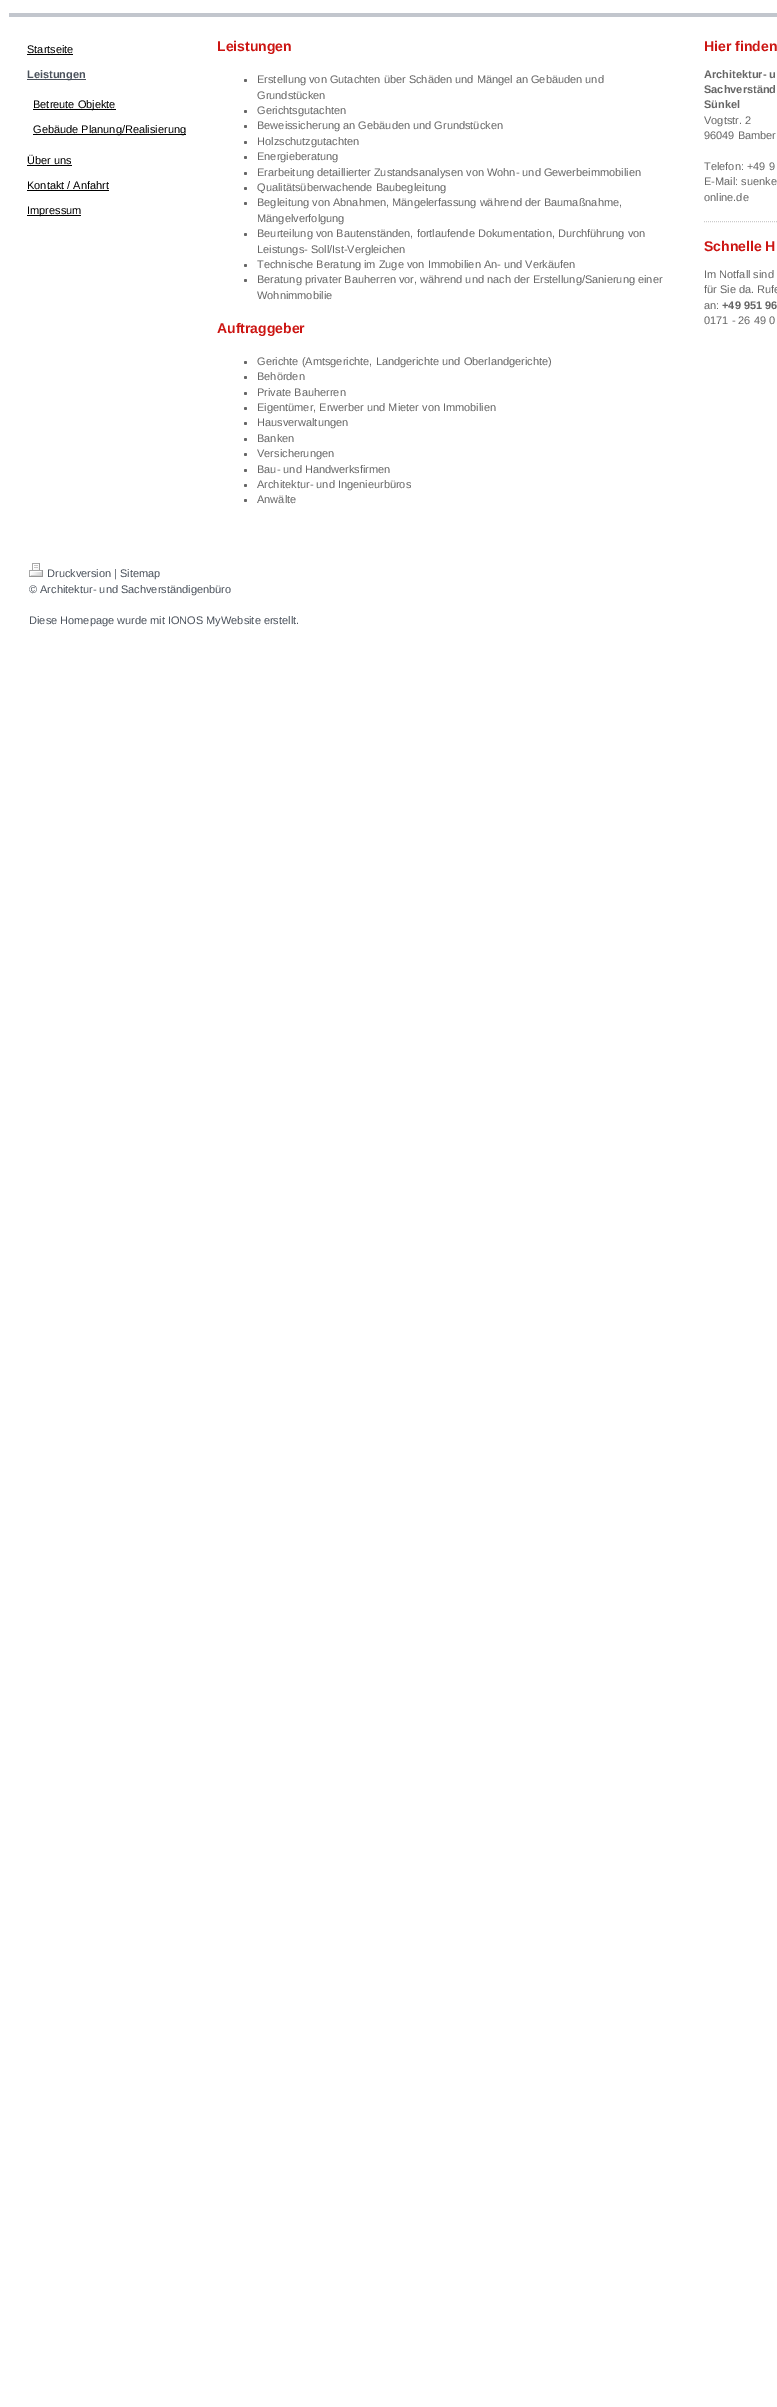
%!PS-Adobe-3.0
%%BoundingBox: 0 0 777 2407
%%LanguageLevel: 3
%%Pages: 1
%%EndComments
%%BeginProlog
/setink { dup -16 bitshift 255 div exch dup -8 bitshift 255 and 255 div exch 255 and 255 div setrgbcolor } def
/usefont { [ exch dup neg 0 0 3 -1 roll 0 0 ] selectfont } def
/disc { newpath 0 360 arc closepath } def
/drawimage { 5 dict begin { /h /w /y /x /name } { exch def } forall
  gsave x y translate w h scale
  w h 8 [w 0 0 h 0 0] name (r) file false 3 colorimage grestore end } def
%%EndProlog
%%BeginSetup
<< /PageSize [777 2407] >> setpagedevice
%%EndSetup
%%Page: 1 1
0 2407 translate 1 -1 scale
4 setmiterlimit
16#FFFFFF setink
0 0 777 2407 rectfill
16#C2C6CD setink
9 13 768 4 rectfill
/LiberationSans-Regular 11 usefont
16#000000 setink
27 53 moveto (Startseite) show
27 54 46 1 rectfill
16#4B525C setink
27 79 59 1 rectfill
/LiberationSans-Bold 11 usefont
27 78 moveto (Leistungen) show
16#000000 setink
33 109 83 1 rectfill
/LiberationSans-Regular 11 usefont
33 108 moveto (Betreute Objekte) show
33 134 153 1 rectfill
33 133 moveto (Gebäude Planung/Realisierung) show
27 164 moveto (Über uns) show
27 165 45 1 rectfill
27 189 moveto (Kontakt / Anfahrt) show
27 190 82 1 rectfill
27 215 54 1 rectfill
27 214 moveto (Impressum) show
/LiberationSans-Bold 14 usefont
16#CC1512 setink
217 51 moveto (Leistungen) show
16#666666 setink
245.5 80.5 1.5 disc fill
/LiberationSans-Regular 11 usefont
257 83 moveto (Erstellung von Gutachten über Schäden und Mängel an Gebäuden und) show
257 99 moveto (Grundstücken) show
245.5 111.5 1.5 disc fill
257 114 moveto (Gerichtsgutachten) show
245.5 126.5 1.5 disc fill
257 129 moveto (Beweissicherung an Gebäuden und Grundstücken) show
245.5 142.5 1.5 disc fill
257 145 moveto (Holzschutzgutachten) show
245.5 157.5 1.5 disc fill
257 160 moveto (Energieberatung) show
245.5 173.5 1.5 disc fill
257 176 moveto (Erarbeitung detaillierter Zustandsanalysen von Wohn- und Gewerbeimmobilien) show
245.5 188.5 1.5 disc fill
257 191 moveto (Qualitätsüberwachende Baubegleitung) show
245.5 203.5 1.5 disc fill
257 206 moveto (Begleitung von Abnahmen, Mängelerfassung während der Baumaßnahme,) show
257 222 moveto (Mängelverfolgung) show
245.5 234.5 1.5 disc fill
257 237 moveto (Beurteilung von Bautenständen, fortlaufende Dokumentation, Durchführung von) show
257 253 moveto (Leistungs- Soll/Ist-Vergleichen) show
245.5 265.5 1.5 disc fill
257 268 moveto (Technische Beratung im Zuge von Immobilien An- und Verkäufen) show
245.5 280.5 1.5 disc fill
257 283 moveto (Beratung privater Bauherren vor, während und nach der Erstellung/Sanierung einer) show
257 299 moveto (Wohnimmobilie) show
/LiberationSans-Bold 14 usefont
16#CC1512 setink
217 333 moveto (Auftraggeber) show
16#666666 setink
245.5 362.5 1.5 disc fill
/LiberationSans-Regular 11 usefont
257 365 moveto (Gerichte \(Amtsgerichte, Landgerichte und Oberlandgerichte\)) show
245.5 377.5 1.5 disc fill
257 380 moveto (Behörden) show
245.5 393.5 1.5 disc fill
257 396 moveto (Private Bauherren) show
245.5 408.5 1.5 disc fill
257 411 moveto (Eigentümer, Erwerber und Mieter von Immobilien) show
245.5 423.5 1.5 disc fill
257 426 moveto (Hausverwaltungen) show
245.5 439.5 1.5 disc fill
257 442 moveto (Banken) show
245.5 454.5 1.5 disc fill
257 457 moveto (Versicherungen) show
245.5 470.5 1.5 disc fill
257 473 moveto (Bau- und Handwerksfirmen) show
245.5 485.5 1.5 disc fill
257 488 moveto (Architektur- und Ingenieurbüros) show
245.5 500.5 1.5 disc fill
257 503 moveto (Anwälte) show
/LiberationSans-Bold 14 usefont
16#CC1512 setink
704 51 moveto (Hier finden) show
/LiberationSans-Bold 11 usefont
16#666666 setink
[
    [(Architektur- u) 704 78]
    [(Sachverständ) 704 93]
    [(Sünkel) 704 108]
] { aload pop moveto show } forall
/LiberationSans-Regular 11 usefont
[
    [(Vogtstr. 2) 704 124]
    [(96049 Bamber) 704 139]
    [(Telefon: +49 9) 704 170]
    [(E-Mail: suenke) 704 185]
    [(online.de) 704 201]
] { aload pop moveto show } forall
16#CCCCCC setink
[1 1] 0 setdash
704 221.5 moveto 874 221.5 lineto stroke
/LiberationSans-Bold 14 usefont
16#CC1512 setink
704 251 moveto (Schnelle H) show
/LiberationSans-Regular 11 usefont
16#666666 setink
[
    [(Im Notfall sind) 704 278]
    [(für Sie da. Rufe) 704 293]
    [(an:) 704 309]
] { aload pop moveto show } forall
/LiberationSans-Bold 11 usefont
722 309 moveto (+49 951 96) show
/LiberationSans-Regular 11 usefont
704 324 moveto (0171 - 26 49 0) show
(img1.raw) 29 563 14 14 drawimage
16#4B525C setink
[
    [(Druckversion | Sitemap) 47 577]
    [(© Architektur- und Sachverständigenbüro) 29 593]
    [(Diese Homepage wurde mit IONOS MyWebsite erstellt.) 29 624]
] { aload pop moveto show } forall
showpage
%%EOF
